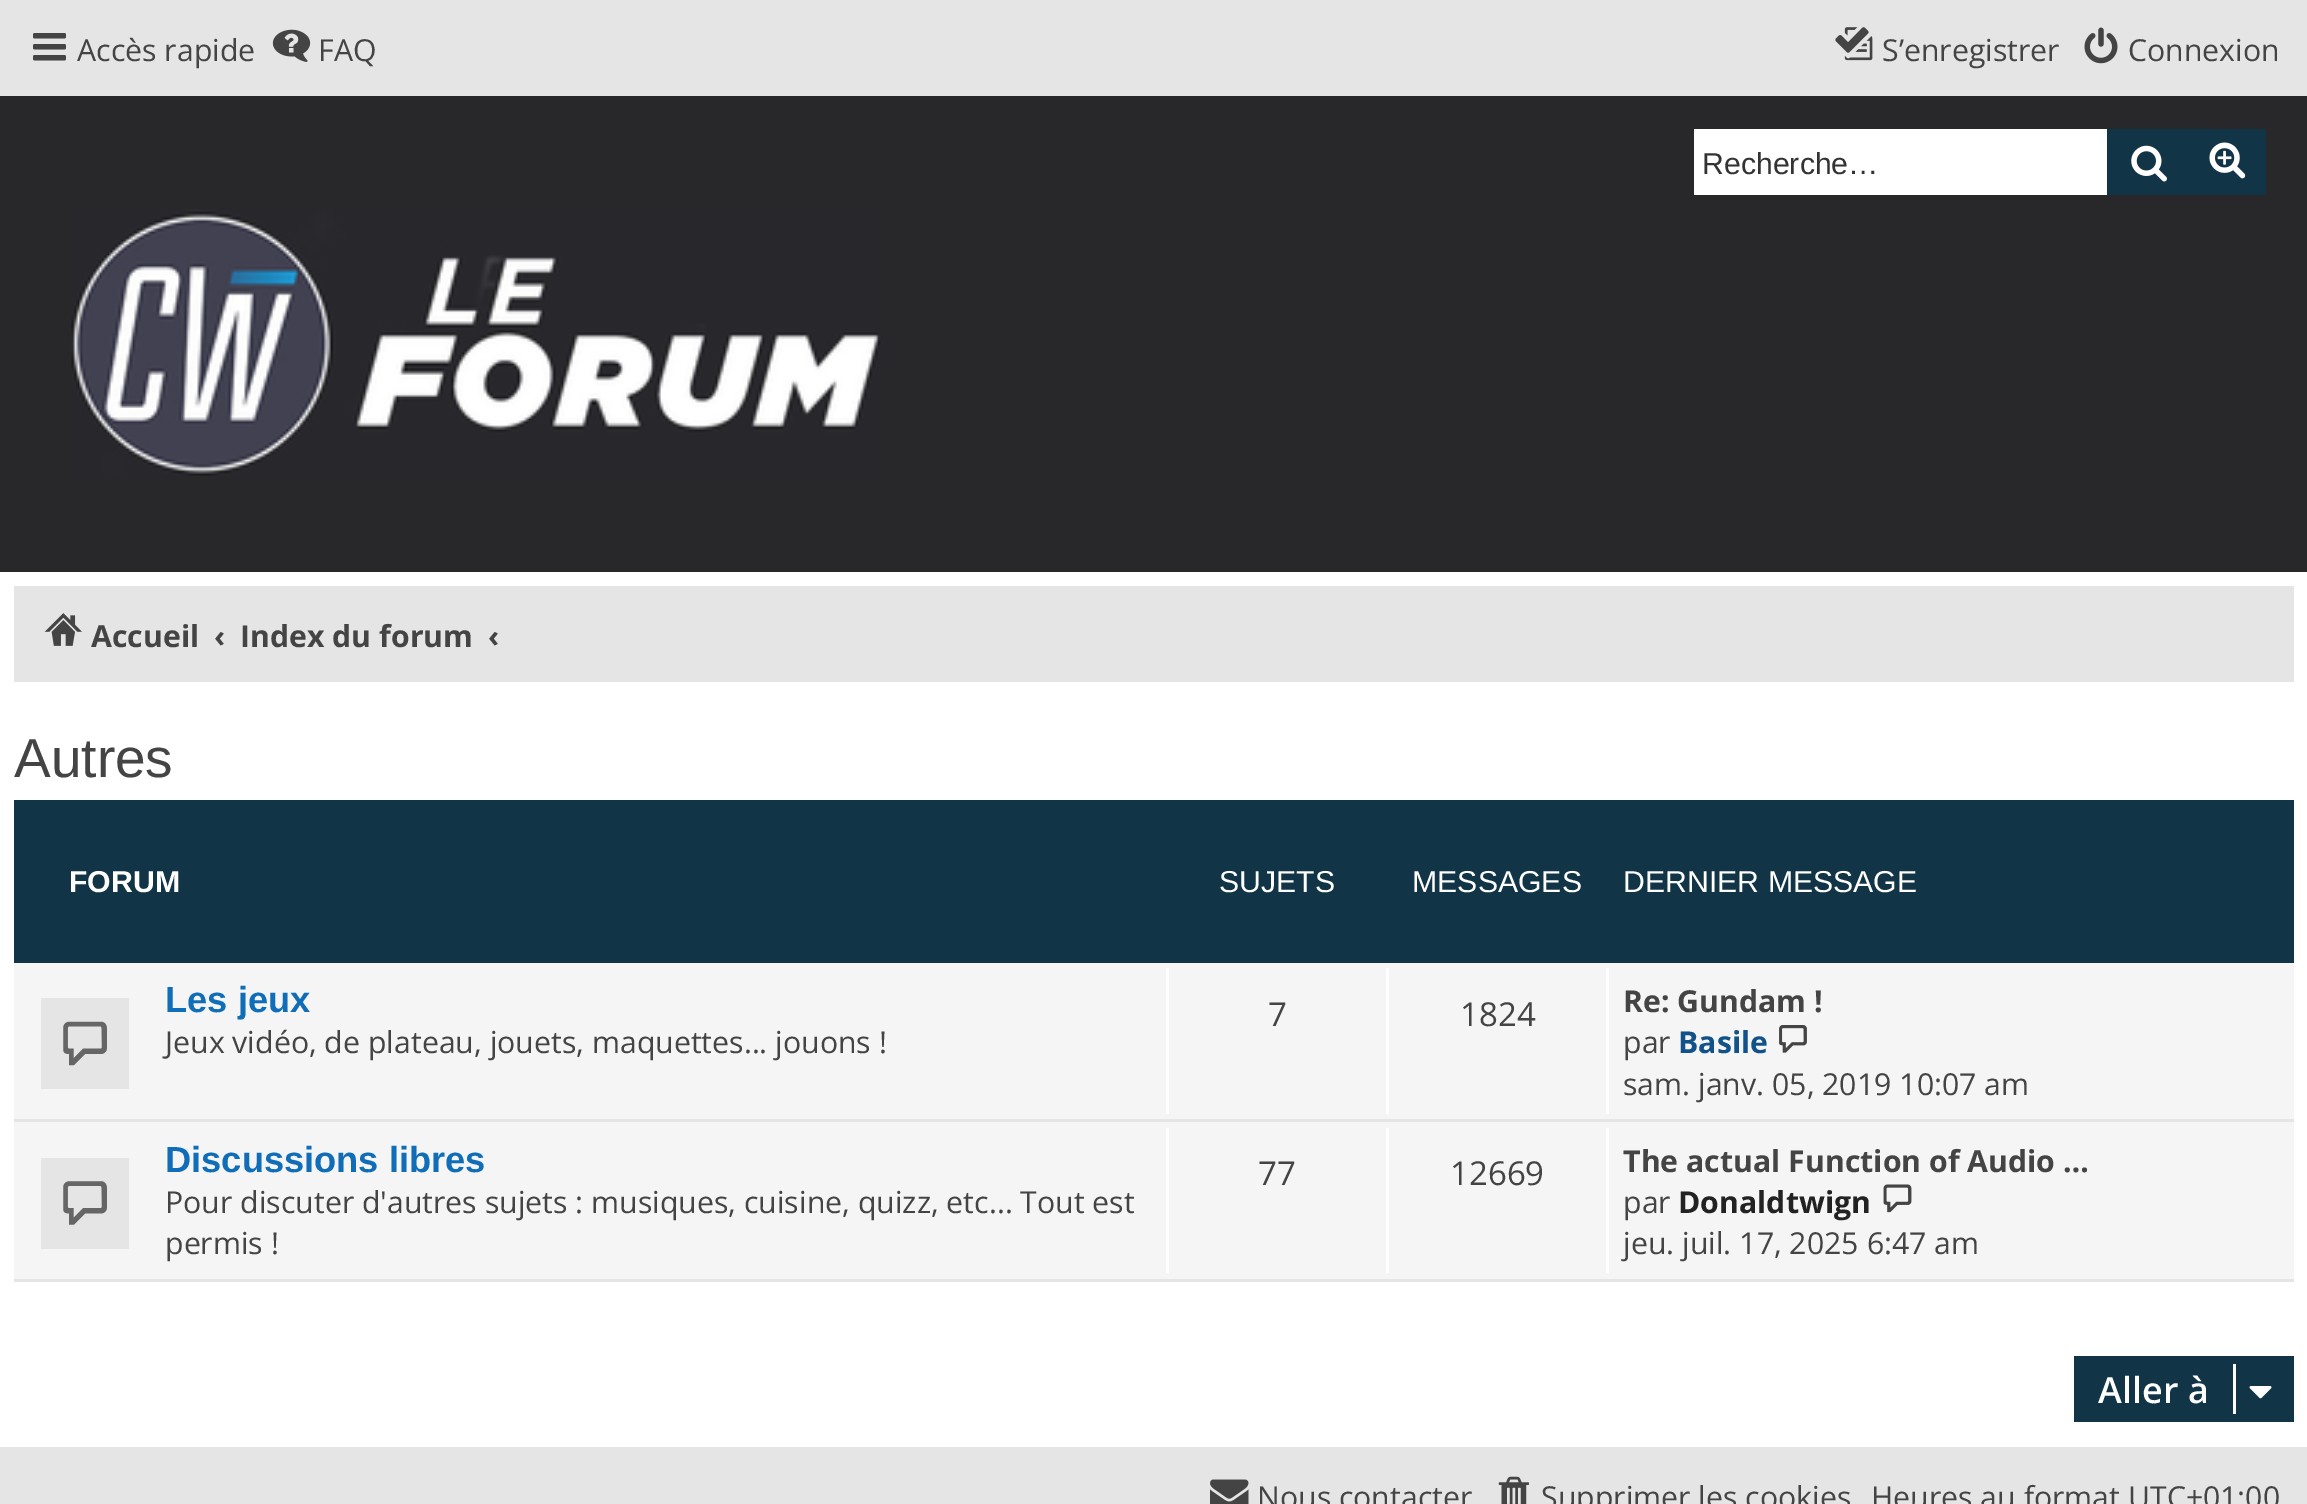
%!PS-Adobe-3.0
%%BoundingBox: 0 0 2307 1504
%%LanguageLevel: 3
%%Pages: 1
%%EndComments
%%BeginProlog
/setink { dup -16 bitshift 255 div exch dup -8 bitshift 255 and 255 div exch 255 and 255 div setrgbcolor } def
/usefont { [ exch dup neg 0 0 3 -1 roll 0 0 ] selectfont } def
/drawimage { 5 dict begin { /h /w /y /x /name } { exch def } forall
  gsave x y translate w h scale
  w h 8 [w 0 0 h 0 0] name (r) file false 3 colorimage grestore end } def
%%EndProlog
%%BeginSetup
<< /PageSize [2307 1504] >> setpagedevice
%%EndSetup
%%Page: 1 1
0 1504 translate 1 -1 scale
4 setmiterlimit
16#FFFFFF setink
0 0 2307 1504 rectfill
16#E5E5E5 setink
0 0 2307 96 rectfill
(img1.raw) 33 33 33 28 drawimage
/OpenSans-Regular 30.25 usefont
16#444444 setink
77 61 moveto (Accès rapide) show
(img2.raw) 272 29 39 33 drawimage
318 61 moveto (FAQ) show
(img3.raw) 1835 27 38 34 drawimage
1882 61 moveto (S’enregistrer) show
(img4.raw) 2084 27 34 37 drawimage
2128 61 moveto (Connexion) show
16#28282B setink
0 96 2307 476 rectfill
16#113447 setink
2107 129 159 66 rectfill
(img5.raw) 2131 145 36 37 drawimage
16#FFFFFF setink
1694 129 413 66 rectfill
/LiberationSans-Regular 30.25 usefont
16#333333 setink
1702 174 moveto (Recherche…) show
(img6.raw) 2209 142 37 37 drawimage
(img7.raw) 71 209 811 267 drawimage
16#E5E5E5 setink
14 586 2280 96 rectfill
(img8.raw) 44 613 38 33 drawimage
/OpenSans-Bold 30.25 usefont
16#444444 setink
[
    [(Accueil) 91 647]
    [(‹) 214 647]
    [(Index du forum) 240 647]
    [(‹) 488 647]
] { aload pop moveto show } forall
/LiberationSans-Regular 55 usefont
14 777 moveto (Autres) show
16#113447 setink
14 800 2280 163 rectfill
/LiberationSans-Bold 30.25 usefont
16#FFFFFF setink
69 892 moveto (FORUM) show
/LiberationSans-Regular 30.25 usefont
[
    [(SUJETS) 1219 892]
    [(MESSAGES) 1412 892]
    [(DERNIER MESSAGE) 1623 892]
] { aload pop moveto show } forall
[
    [14 963 2280 316 16#F5F5F5]
    [14 1119 2280 3 16#E5E5E5]
    [41 998 88 91 16#E5E5E5]
] { aload pop setink rectfill } forall
(img9.raw) 63 1021 44 45 drawimage
/LiberationSans-Bold 36.25 usefont
16#106EB9 setink
165 1012 moveto (Les jeux) show
/OpenSans-Regular 30.25 usefont
16#444444 setink
165 1053 moveto (Jeux vidéo, de plateau, jouets, maquettes... jouons !) show
16#FFFFFF setink
1166 968 3 146 rectfill
/OpenSans-Regular 33 usefont
16#444444 setink
1268 1026 moveto (7) show
16#FFFFFF setink
1386 968 3 146 rectfill
16#444444 setink
1460 1026 moveto (1824) show
16#FFFFFF setink
1606 968 3 146 rectfill
/OpenSans-Bold 30.25 usefont
16#444444 setink
1623 1012 moveto (Re: Gundam !) show
/OpenSans-Regular 30.25 usefont
1623 1053 moveto (par) show
/OpenSans-Bold 30.25 usefont
16#105289 setink
1678 1053 moveto (Basile) show
(img10.raw) 1779 1025 28 28 drawimage
/OpenSans-Regular 30.25 usefont
16#444444 setink
1623 1095 moveto (sam. janv. 05, 2019 10:07 am) show
16#E5E5E5 setink
14 1279 2280 3 rectfill
41 1158 88 91 rectfill
(img11.raw) 63 1181 44 44 drawimage
/LiberationSans-Bold 36.25 usefont
16#106EB9 setink
165 1172 moveto (Discussions libres) show
/OpenSans-Regular 30.25 usefont
16#444444 setink
165 1213 moveto (Pour discuter d'autres sujets : musiques, cuisine, quizz, etc... Tout est) show
165 1254 moveto (permis !) show
16#FFFFFF setink
1166 1128 3 145 rectfill
/OpenSans-Regular 33 usefont
16#444444 setink
1258 1185 moveto (77) show
16#FFFFFF setink
1386 1128 3 145 rectfill
16#444444 setink
1450 1185 moveto (12669) show
16#FFFFFF setink
1606 1128 3 145 rectfill
/OpenSans-Bold 30.25 usefont
16#444444 setink
1623 1172 moveto (The actual Function of Audio …) show
/OpenSans-Regular 30.25 usefont
1623 1213 moveto (par) show
/OpenSans-Bold 30.25 usefont
16#222222 setink
1678 1213 moveto (Donaldtwign) show
(img12.raw) 1883 1184 29 29 drawimage
/OpenSans-Regular 30.25 usefont
16#444444 setink
1623 1254 moveto (jeu. juil. 17, 2025 6:47 am) show
16#113447 setink
2074 1356 220 66 rectfill
/OpenSans-SemiBold 36 usefont
16#FFFFFF setink
2098 1403 moveto (Aller à) show
2233 1364 3 50 rectfill
(img13.raw) 2249 1386 23 13 drawimage
16#E5E5E5 setink
0 1447 2307 57 rectfill
(img14.raw) 1210 1479 39 25 drawimage
/OpenSans-Regular 30.25 usefont
16#444444 setink
1257 1508 moveto (Nous contacter) show
(img15.raw) 1498 1476 31 28 drawimage
1541 1508 moveto (Supprimer les cookies) show
1871 1508 moveto (Heures au format UTC+01:00) show
showpage
%%EOF
